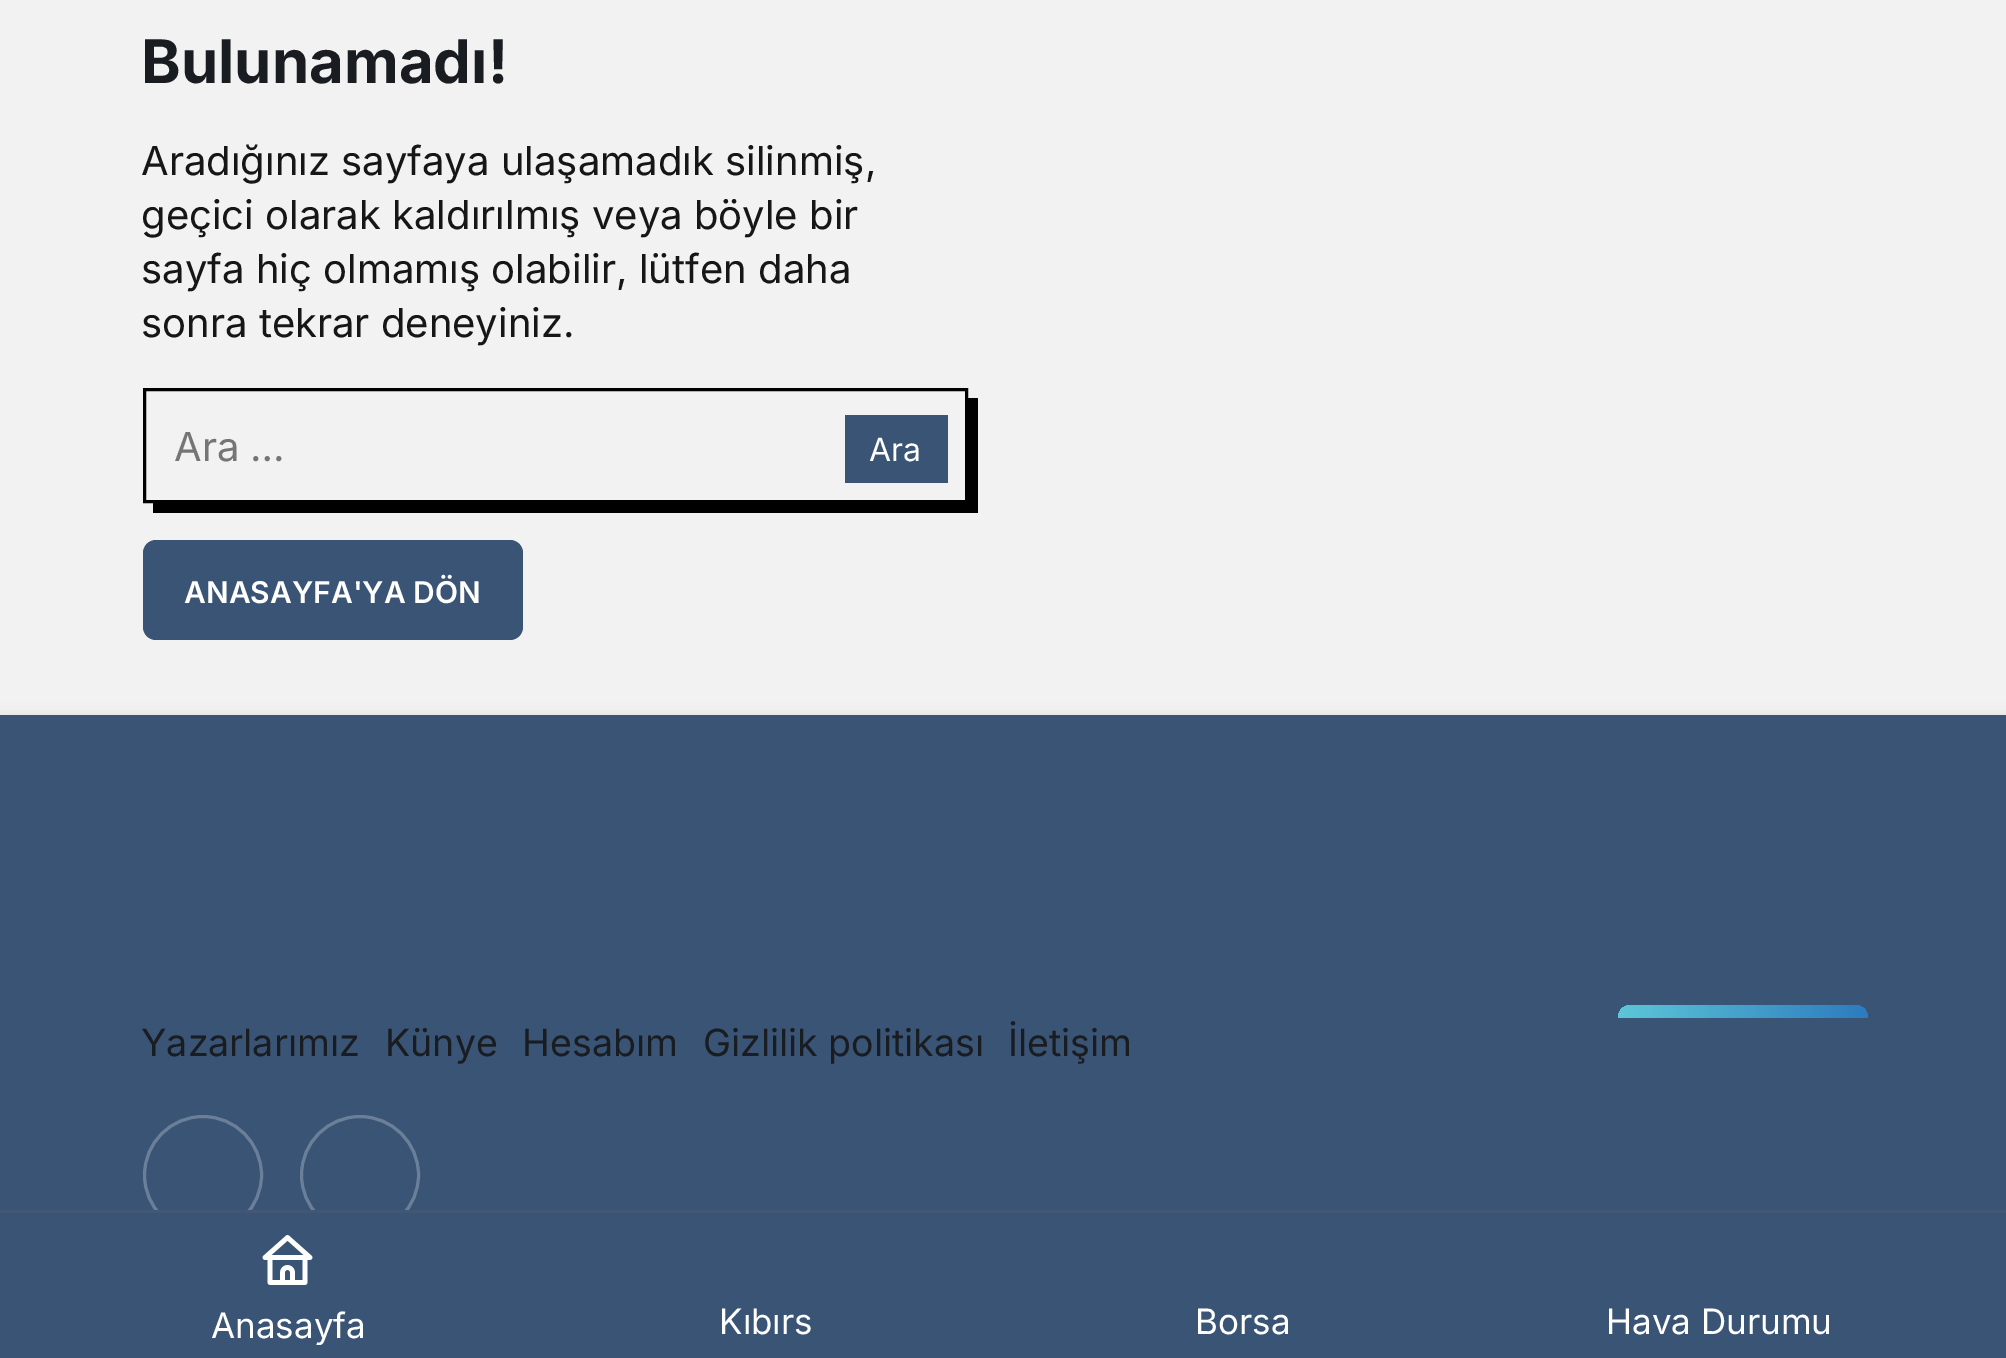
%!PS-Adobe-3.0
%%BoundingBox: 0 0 2006 1358
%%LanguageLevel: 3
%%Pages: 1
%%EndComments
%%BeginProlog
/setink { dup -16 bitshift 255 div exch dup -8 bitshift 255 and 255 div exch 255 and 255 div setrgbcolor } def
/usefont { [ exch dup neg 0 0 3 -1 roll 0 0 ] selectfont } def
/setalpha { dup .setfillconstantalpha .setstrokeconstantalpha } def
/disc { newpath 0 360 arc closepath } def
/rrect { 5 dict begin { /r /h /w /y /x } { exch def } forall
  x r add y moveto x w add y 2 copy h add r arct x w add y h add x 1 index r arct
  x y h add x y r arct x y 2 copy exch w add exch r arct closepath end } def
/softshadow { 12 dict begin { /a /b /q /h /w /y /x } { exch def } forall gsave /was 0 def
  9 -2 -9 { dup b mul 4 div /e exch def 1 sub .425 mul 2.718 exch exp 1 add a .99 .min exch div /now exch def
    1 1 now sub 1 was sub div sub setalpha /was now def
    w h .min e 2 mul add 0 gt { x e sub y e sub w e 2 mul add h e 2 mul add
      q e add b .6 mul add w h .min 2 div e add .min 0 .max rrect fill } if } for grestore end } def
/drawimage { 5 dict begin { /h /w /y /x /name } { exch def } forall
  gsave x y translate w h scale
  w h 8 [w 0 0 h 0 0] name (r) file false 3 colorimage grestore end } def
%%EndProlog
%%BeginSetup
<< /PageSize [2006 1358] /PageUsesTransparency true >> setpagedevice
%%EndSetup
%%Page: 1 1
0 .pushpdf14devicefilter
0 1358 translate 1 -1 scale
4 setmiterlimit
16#F2F2F3 setink
0 0 2006 1358 rectfill
/Inter-Bold 60 usefont
16#191C20 setink
141 83 moveto (Bulunamadı!) show
/Inter-Regular 40 usefont
16#161616 setink
[
    [(Aradığınız sayfaya ulaşamadık silinmiş,) 141 175]
    [(geçici olarak kaldırılmış veya böyle bir) 141 229]
    [(sayfa hiç olmamış olabilir, lütfen daha) 141 283]
    [(sonra tekrar deneyiniz.) 141 337]
] { aload pop moveto show } forall
16#000000 setink
153 502 moveto 153 513 lineto 978 513 lineto 978 398 lineto 968 398 lineto 968 502 lineto closepath fill
3 setlinewidth
144.5 389.5 822 112 rectstroke
16#757575 setink
174 461 moveto (Ara …) show
16#3A5475 setink
845 415 103 68 rectfill
/Inter-Regular 32 usefont
16#FFFFFF setink
869 461 moveto (Ara) show
16#3A5475 setink
143 540 380 100 13 rrect fill
/Inter-SemiBold 30 usefont
16#FFFFFF setink
184 603 moveto (ANASAYFA'YA DÖN) show
16#32353D setink
0 715 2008 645 0 6 0.1 softshadow
16#3A5475 setink
0 715 2006 495 rectfill
gsave 1631 1005 moveto 1855 1005 lineto 1862 1005 1868 1011 1868 1018 curveto 1618 1018 lineto 1618 1011 1624 1005 1631 1005 curveto closepath clip newpath
<< /ShadingType 2 /ColorSpace /DeviceRGB /Coords [1618 1011 1868 1011] /Extend [true true] /Function << /FunctionType 2 /Domain [0 1] /C0 [0.361 0.78 0.847] /C1 [0.176 0.482 0.745] /N 1 >> >> shfill grestore
/Inter-Regular 37.5 usefont
16#191C20 setink
[
    [(Yazarlarımız) 141 1056]
    [(Künye) 385 1056]
    [(Hesabım) 522 1056]
    [(Gizlilik politikası) 703 1056]
    [(İletişim) 1008 1056]
] { aload pop moveto show } forall
16#6B7F98 setink
203 1175 58.5 disc stroke
360 1175 58.5 disc stroke
16#3A5475 setink
0 1213 2006 145 rectfill
16#415774 setink
0 1210 2006 3 rectfill
(img1.raw) 262 1235 51 50 drawimage
gsave
210 1303 155 42 rectclip
/Inter-Regular 35 usefont
16#FFFFFF setink
211 1338 moveto (Anasayfa) show
grestore
/Inter-Regular 35 usefont
16#FFFFFF setink
[
    [(Kıbırs) 719 1334]
    [(Borsa) 1195 1334]
    [(Hava Durumu) 1606 1334]
] { aload pop moveto show } forall
.poppdf14devicefilter showpage
%%EOF
